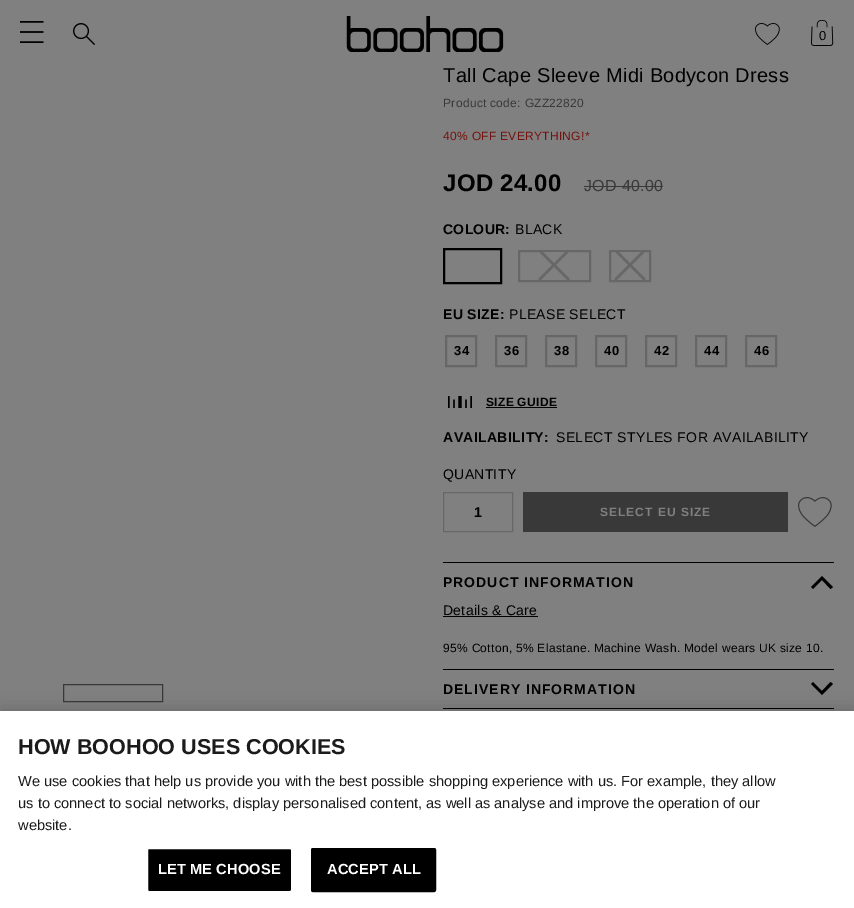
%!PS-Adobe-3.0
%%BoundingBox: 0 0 854 908
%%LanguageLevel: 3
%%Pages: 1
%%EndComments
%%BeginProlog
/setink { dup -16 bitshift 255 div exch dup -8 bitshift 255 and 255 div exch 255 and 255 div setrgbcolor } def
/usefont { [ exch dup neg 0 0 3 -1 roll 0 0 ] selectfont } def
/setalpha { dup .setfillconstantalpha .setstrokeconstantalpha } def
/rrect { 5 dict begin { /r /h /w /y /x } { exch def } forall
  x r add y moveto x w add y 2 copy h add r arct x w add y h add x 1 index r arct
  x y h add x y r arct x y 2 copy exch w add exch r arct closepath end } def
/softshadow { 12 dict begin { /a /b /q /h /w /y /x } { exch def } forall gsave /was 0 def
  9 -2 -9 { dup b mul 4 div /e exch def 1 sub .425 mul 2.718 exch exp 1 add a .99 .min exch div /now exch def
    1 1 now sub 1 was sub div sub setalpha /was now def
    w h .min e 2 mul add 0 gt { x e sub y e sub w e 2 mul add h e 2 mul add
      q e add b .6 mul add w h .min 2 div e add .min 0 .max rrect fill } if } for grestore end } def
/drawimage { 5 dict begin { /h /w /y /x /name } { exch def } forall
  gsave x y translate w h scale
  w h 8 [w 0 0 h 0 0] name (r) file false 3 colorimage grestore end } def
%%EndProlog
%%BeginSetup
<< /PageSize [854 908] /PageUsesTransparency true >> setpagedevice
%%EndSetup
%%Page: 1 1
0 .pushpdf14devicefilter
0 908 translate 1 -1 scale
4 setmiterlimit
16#808080 setink
0 0 854 908 rectfill
/LiberationSans-Regular 20 usefont
16#000000 setink
443 82 moveto 0.3 0 (Tall Cape Sleeve Midi Bodycon Dress) ashow
16#808080 setink
468 67 217 1 rectfill
(img1.raw) 20 21 24 22 drawimage
(img2.raw) 73 23 22 22 drawimage
(img3.raw) 346 16 158 36 drawimage
(img4.raw) 755 23 25 22 drawimage
(img5.raw) 811 20 23 26 drawimage
/LiberationSans-Regular 13 usefont
16#000000 setink
819 40 moveto 0.3 0 (0) ashow
16#393939 setink
63.5 684.5 99 17 rectstroke
/LiberationSans-Regular 12 usefont
443 107 moveto 0.3 0 (Product code: GZZ22820) ashow
16#74120E setink
443 140 moveto 0.3 0 (40% OFF EVERYTHING!*) ashow
/LiberationSans-Bold 24 usefont
16#000000 setink
443 191 moveto 0.3 0 (JOD 24.00) ashow
/LiberationSans-Regular 16 usefont
16#393939 setink
584 191 moveto 0.3 0 (JOD 40.00) ashow
584 186 79 1 rectfill
/LiberationSans-Bold 14 usefont
16#000000 setink
443 234 moveto 0.3 0 (COLOUR:) ashow
/LiberationSans-Regular 14 usefont
515 234 moveto 0.3 0 (BLACK) ashow
2 setlinewidth
444 249 57 34 rectstroke
16#676767 setink
519 251 71 30 rectstroke
(img6.raw) 538 252 32 28 drawimage
610 251 40 30 rectstroke
(img6.raw) 614 252 32 28 drawimage
/LiberationSans-Bold 14 usefont
16#000000 setink
443 319 moveto 0.3 0 (EU SIZE:) ashow
/LiberationSans-Regular 14 usefont
509 319 moveto 0.3 0 (PLEASE SELECT) ashow
16#676767 setink
446 336 30 30 rectstroke
/LiberationSans-Bold 13 usefont
16#000000 setink
454 355 moveto 0.3 0 (34) ashow
16#676767 setink
496 336 30 30 rectstroke
16#000000 setink
504 355 moveto 0.3 0 (36) ashow
16#676767 setink
546 336 30 30 rectstroke
16#000000 setink
554 355 moveto 0.3 0 (38) ashow
16#676767 setink
596 336 30 30 rectstroke
16#000000 setink
604 355 moveto 0.3 0 (40) ashow
16#676767 setink
646 336 30 30 rectstroke
16#000000 setink
654 355 moveto 0.3 0 (42) ashow
16#676767 setink
696 336 30 30 rectstroke
16#000000 setink
704 355 moveto 0.3 0 (44) ashow
16#676767 setink
746 336 30 30 rectstroke
16#000000 setink
754 355 moveto 0.3 0 (46) ashow
(img7.raw) 448 396 24 12 drawimage
/LiberationSans-Bold 12 usefont
486 406 moveto 0.3 0 (SIZE GUIDE) ashow
486 407 71 1 rectfill
/LiberationSans-Bold 14 usefont
443 442 moveto 0.4 0 (AVAILABILITY:) ashow
/LiberationSans-Regular 14 usefont
556 442 moveto 0.4 0 (SELECT STYLES FOR AVAILABILITY) ashow
443 479 moveto 0.3 0 (QUANTITY) ashow
16#676767 setink
1 setlinewidth
443.5 492.5 69 39 rectstroke
/LiberationSans-Bold 14 usefont
16#000000 setink
474 517 moveto (1) show
16#393939 setink
523 492 265 40 rectfill
/LiberationSans-Bold 12 usefont
16#808080 setink
600 516 moveto 1 0 (SELECT EU SIZE) ashow
(img8.raw) 798 497 34 30 drawimage
16#000000 setink
443 562 391 1 rectfill
/LiberationSans-Bold 14 usefont
443 587 moveto 1 0 (PRODUCT INFORMATION) ashow
813 589 moveto 822 580 lineto 830.5 589 lineto 833 587 lineto 822 576 lineto 811 587 lineto closepath fill
/LiberationSans-Regular 14 usefont
443 615 moveto 0.3 0 (Details & Care) ashow
443 616 95 1 rectfill
/LiberationSans-Regular 12 usefont
443 652 moveto 0.3 0 (95% Cotton, 5% Elastane. Machine Wash. Model wears UK size 10.) ashow
443 669 391 1 rectfill
/LiberationSans-Bold 14 usefont
443 694 moveto 1 0 (DELIVERY INFORMATION) ashow
833 684 moveto 822 695 lineto 811 684 lineto 813 682 lineto 822 691 lineto 830.5 682 lineto closepath fill
443 708 391 1 rectfill
0 711 854 197 0 9 0.2 softshadow
16#FFFFFF setink
0 711 854 197 rectfill
/LiberationSans-Bold 21.6 usefont
16#1B1B1B setink
18 754 moveto (HOW BOOHOO USES COOKIES) show
/LiberationSans-Regular 14.63 usefont
[
    [(We use cookies that help us provide you with the best possible shopping experience with us. For example, they allow) 18 786]
    [(us to connect to social networks, display personalised content, as well as analyse and improve the operation of our) 18 808]
    [(website.) 18 830]
] { aload pop moveto show } forall
16#000000 setink
147.5 848.5 144 43 1.5 rrect gsave fill grestore
16#FFFFFF setink
stroke
/LiberationSans-Bold 14.63 usefont
158 874 moveto 0.1 0 (LET ME CHOOSE) ashow
16#000000 setink
311.5 848.5 124 43 1.5 rrect gsave fill grestore
stroke
16#FFFFFF setink
327 874 moveto 0.1 0 (ACCEPT ALL) ashow
.poppdf14devicefilter showpage
%%EOF
